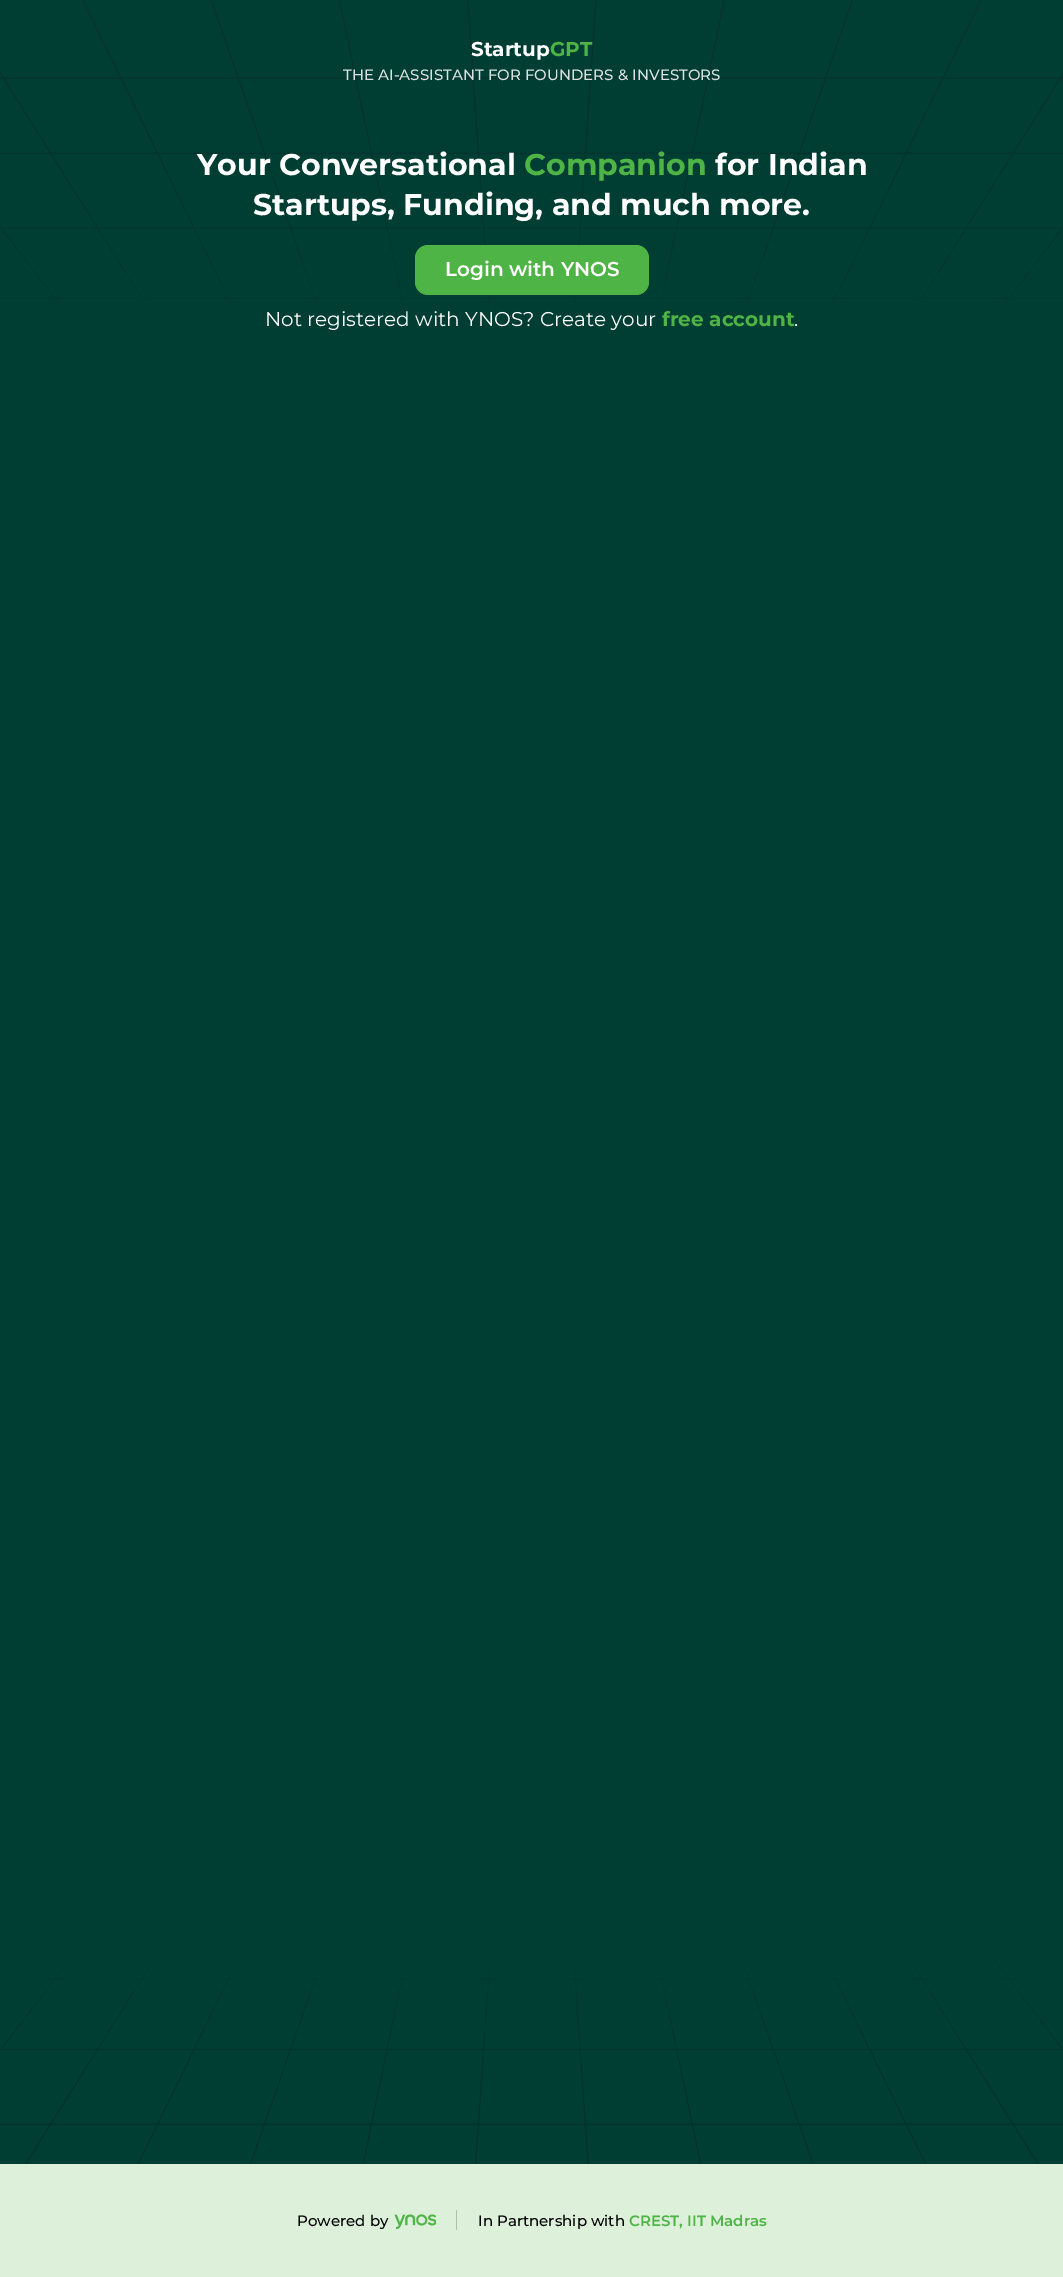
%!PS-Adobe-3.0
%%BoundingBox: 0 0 1063 2277
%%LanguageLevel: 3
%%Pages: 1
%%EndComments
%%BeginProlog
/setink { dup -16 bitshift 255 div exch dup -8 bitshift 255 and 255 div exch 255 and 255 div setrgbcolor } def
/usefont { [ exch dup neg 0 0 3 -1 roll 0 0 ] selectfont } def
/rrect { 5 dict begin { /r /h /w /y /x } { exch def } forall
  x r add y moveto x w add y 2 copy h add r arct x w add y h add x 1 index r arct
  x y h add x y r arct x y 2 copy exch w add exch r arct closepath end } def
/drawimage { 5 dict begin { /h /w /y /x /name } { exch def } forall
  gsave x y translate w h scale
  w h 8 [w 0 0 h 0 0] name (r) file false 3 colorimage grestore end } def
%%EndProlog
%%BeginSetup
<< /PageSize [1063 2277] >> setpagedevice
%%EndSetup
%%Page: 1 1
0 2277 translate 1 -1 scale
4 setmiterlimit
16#003D33 setink
0 0 1063 2277 rectfill
(img1.raw) 0 0 1063 2164 drawimage
/Montserrat-Bold 20 usefont
16#FFFFFF setink
471 56 moveto (Startup) show
16#4FB446 setink
550 56 moveto (GPT) show
/Montserrat-Medium 15 usefont
16#D9E2E0 setink
343 80 moveto (THE AI-ASSISTANT FOR FOUNDERS & INVESTORS) show
/Montserrat-Bold 30 usefont
16#FFFFFF setink
197 175 moveto (Your Conversational) show
16#4FB446 setink
524 175 moveto (Companion) show
16#FFFFFF setink
715 175 moveto (for Indian) show
253 215 moveto (Startups, Funding, and much more.) show
16#4FB446 setink
415 245 234 50 13 rrect fill
/Montserrat-SemiBold 20 usefont
16#FFFFFF setink
445 276 moveto (Login with YNOS) show
/Montserrat-Regular 20 usefont
265 326 moveto (Not registered with YNOS? Create your) show
/Montserrat-Bold 20 usefont
16#4FB446 setink
662 326 moveto (free account) show
/Montserrat-Regular 20 usefont
16#FFFFFF setink
794 326 moveto (.) show
16#DCF0DA setink
0 2164 1063 113 rectfill
/Montserrat-Medium 15 usefont
16#000000 setink
297 2226 moveto (Powered by) show
(img2.raw) 394 2214 42 16 drawimage
16#B0C0AE setink
456 2210 1 20 rectfill
16#000000 setink
478 2226 moveto (In Partnership with) show
/Montserrat-SemiBold 15 usefont
16#4FB446 setink
629 2226 moveto (CREST, IIT Madras) show
showpage
%%EOF
